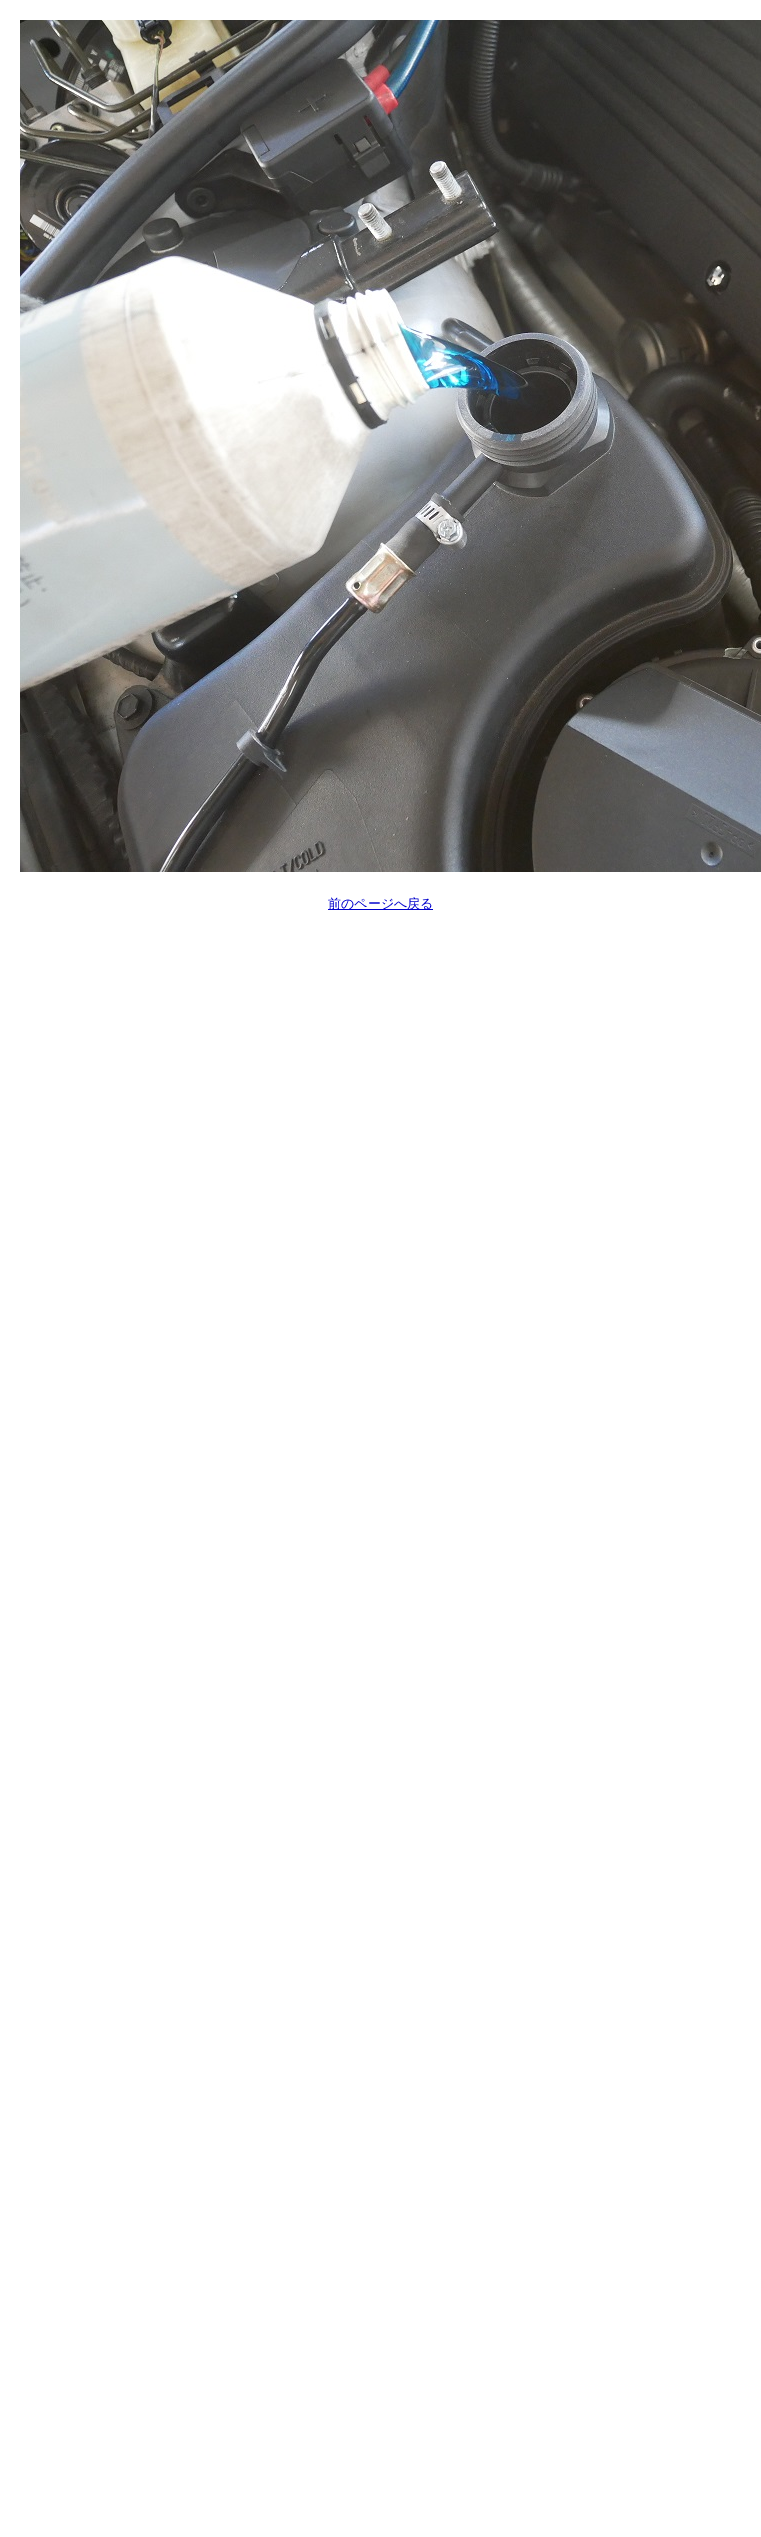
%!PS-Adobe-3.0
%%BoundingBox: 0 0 761 2537
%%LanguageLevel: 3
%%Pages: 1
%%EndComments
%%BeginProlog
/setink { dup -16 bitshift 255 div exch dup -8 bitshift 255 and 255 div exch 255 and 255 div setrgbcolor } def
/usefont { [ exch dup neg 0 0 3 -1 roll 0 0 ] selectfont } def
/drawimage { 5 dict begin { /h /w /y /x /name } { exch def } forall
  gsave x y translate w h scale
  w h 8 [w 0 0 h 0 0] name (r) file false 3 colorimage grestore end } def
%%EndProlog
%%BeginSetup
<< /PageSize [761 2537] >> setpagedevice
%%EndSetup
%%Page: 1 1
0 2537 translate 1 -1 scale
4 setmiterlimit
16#FFFFFF setink
0 0 761 2537 rectfill
(img1.raw) 20 20 741 852 drawimage
16#0000CC setink
328 909 105 1 rectfill
/WenQuanYiZenHei-Medium 13 usefont
328 908 moveto (前のページへ戻る) show
showpage
%%EOF
